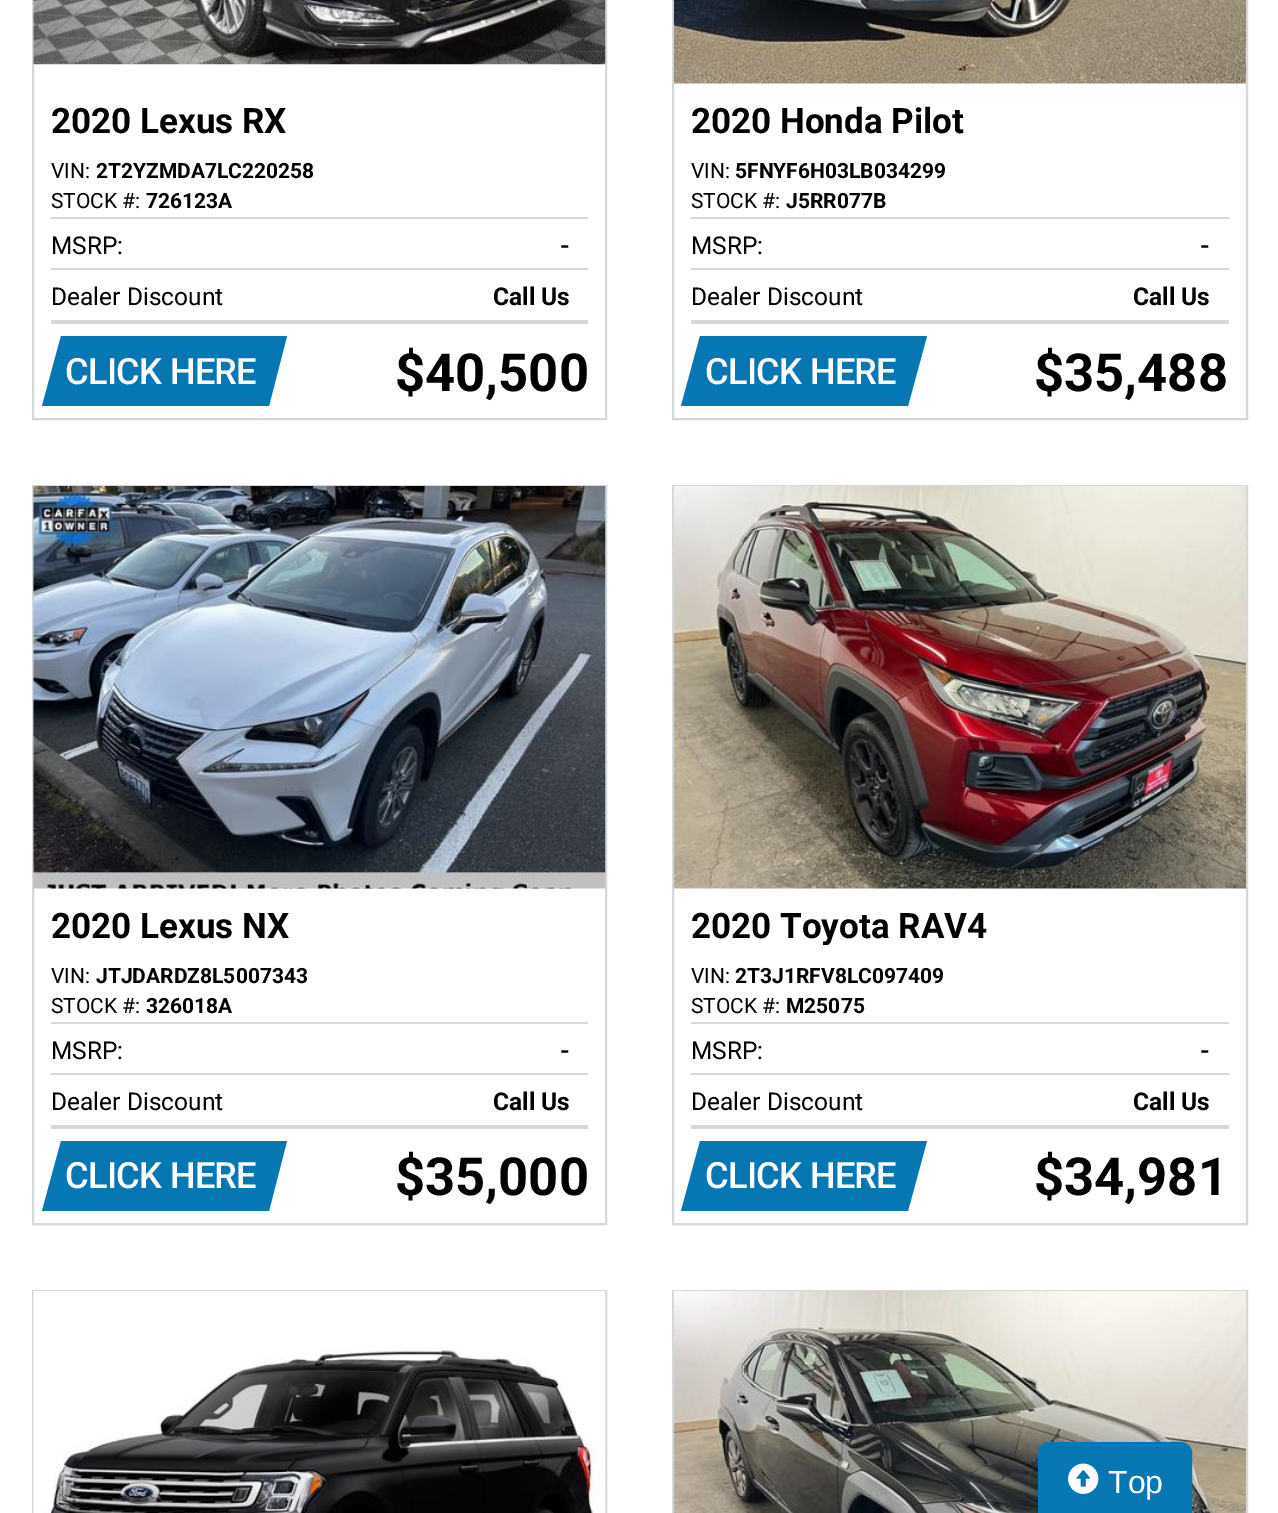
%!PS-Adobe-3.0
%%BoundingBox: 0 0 1278 1513
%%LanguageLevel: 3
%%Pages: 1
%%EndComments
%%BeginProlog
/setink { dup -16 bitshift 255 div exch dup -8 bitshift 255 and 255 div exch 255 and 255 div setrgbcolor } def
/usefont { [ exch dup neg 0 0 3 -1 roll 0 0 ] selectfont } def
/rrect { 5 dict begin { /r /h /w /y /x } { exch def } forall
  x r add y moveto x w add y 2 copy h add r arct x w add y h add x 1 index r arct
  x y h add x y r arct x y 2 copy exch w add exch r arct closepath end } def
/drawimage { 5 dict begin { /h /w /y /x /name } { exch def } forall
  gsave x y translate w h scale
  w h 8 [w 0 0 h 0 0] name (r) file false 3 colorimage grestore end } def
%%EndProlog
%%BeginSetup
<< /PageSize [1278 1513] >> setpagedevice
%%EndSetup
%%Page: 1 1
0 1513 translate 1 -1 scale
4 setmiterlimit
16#FFFFFF setink
0 0 1278 1513 rectfill
16#D4D8D9 setink
2 setlinewidth
33 -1 573 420 rectstroke
(img1.raw) 33 0 573 65 drawimage
/Roboto-Bold 35 usefont
16#000000 setink
51 133 moveto (2020 Lexus RX) show
/Roboto-Regular 21 usefont
51 178 moveto (VIN:) show
/Roboto-Bold 21 usefont
96 178 moveto (2T2YZMDA7LC220258) show
/Roboto-Regular 21 usefont
51 208 moveto (STOCK #:) show
/Roboto-Bold 21 usefont
146 208 moveto (726123A) show
16#D4D8D9 setink
51 217 537 2 rectfill
51 268 537 2 rectfill
/Roboto-Regular 24.5 usefont
16#000000 setink
51 254 moveto (MSRP:) show
/Roboto-Bold 24.5 usefont
560 254 moveto (-) show
16#D4D8D9 setink
51 320 537 4 rectfill
/Roboto-Regular 24.5 usefont
16#000000 setink
51 305 moveto (Dealer Discount) show
/Roboto-Bold 24.5 usefont
493 305 moveto (Call Us) show
16#0777B3 setink
61 336 moveto 287 336 lineto 269 406 lineto 42 406 lineto closepath fill
/Roboto-Medium 36.25 usefont
16#FFFFFF setink
65 384 moveto -0.75 0 (CLICK HERE) ashow
/Roboto-Bold 52.5 usefont
16#000000 setink
395 391 moveto ($40,500) show
16#D4D8D9 setink
673 -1 574 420 rectstroke
(img2.raw) 673 0 573 84 drawimage
/Roboto-Bold 35 usefont
16#000000 setink
691 133 moveto (2020 Honda Pilot) show
/Roboto-Regular 21 usefont
691 178 moveto (VIN:) show
/Roboto-Bold 21 usefont
735 178 moveto (5FNYF6H03LB034299) show
/Roboto-Regular 21 usefont
691 208 moveto (STOCK #:) show
/Roboto-Bold 21 usefont
786 208 moveto (J5RR077B) show
16#D4D8D9 setink
691 217 538 2 rectfill
691 268 538 2 rectfill
/Roboto-Regular 24.5 usefont
16#000000 setink
691 254 moveto (MSRP:) show
/Roboto-Bold 24.5 usefont
1200 254 moveto (-) show
16#D4D8D9 setink
691 320 538 4 rectfill
/Roboto-Regular 24.5 usefont
16#000000 setink
691 305 moveto (Dealer Discount) show
/Roboto-Bold 24.5 usefont
1133 305 moveto (Call Us) show
16#0777B3 setink
700 336 moveto 927 336 lineto 908 406 lineto 681 406 lineto closepath fill
/Roboto-Medium 36.25 usefont
16#FFFFFF setink
705 384 moveto -0.75 0 (CLICK HERE) ashow
/Roboto-Bold 52.5 usefont
16#000000 setink
1034 391 moveto ($35,488) show
16#D4D8D9 setink
33 486 573 738 rectstroke
(img3.raw) 33 486 573 403 drawimage
/Roboto-Bold 35 usefont
16#000000 setink
51 938 moveto (2020 Lexus NX) show
/Roboto-Regular 21 usefont
51 983 moveto (VIN:) show
/Roboto-Bold 21 usefont
96 983 moveto (JTJDARDZ8L5007343) show
/Roboto-Regular 21 usefont
51 1013 moveto (STOCK #:) show
/Roboto-Bold 21 usefont
146 1013 moveto (326018A) show
16#D4D8D9 setink
51 1022 537 2 rectfill
51 1073 537 2 rectfill
/Roboto-Regular 24.5 usefont
16#000000 setink
51 1059 moveto (MSRP:) show
/Roboto-Bold 24.5 usefont
560 1059 moveto (-) show
16#D4D8D9 setink
51 1125 537 4 rectfill
/Roboto-Regular 24.5 usefont
16#000000 setink
51 1110 moveto (Dealer Discount) show
/Roboto-Bold 24.5 usefont
493 1110 moveto (Call Us) show
16#0777B3 setink
61 1141 moveto 287 1141 lineto 269 1211 lineto 42 1211 lineto closepath fill
/Roboto-Medium 36.25 usefont
16#FFFFFF setink
65 1188 moveto -0.75 0 (CLICK HERE) ashow
/Roboto-Bold 52.5 usefont
16#000000 setink
395 1195 moveto ($35,000) show
16#D4D8D9 setink
673 486 574 738 rectstroke
(img4.raw) 673 486 573 403 drawimage
gsave
691 907 296 38 rectclip
/Roboto-Bold 35 usefont
16#000000 setink
691 938 moveto (2020 Toyota RAV4) show
grestore
/Roboto-Regular 21 usefont
16#000000 setink
691 983 moveto (VIN:) show
/Roboto-Bold 21 usefont
735 983 moveto (2T3J1RFV8LC097409) show
/Roboto-Regular 21 usefont
691 1013 moveto (STOCK #:) show
/Roboto-Bold 21 usefont
786 1013 moveto (M25075) show
16#D4D8D9 setink
691 1022 538 2 rectfill
691 1073 538 2 rectfill
/Roboto-Regular 24.5 usefont
16#000000 setink
691 1059 moveto (MSRP:) show
/Roboto-Bold 24.5 usefont
1200 1059 moveto (-) show
16#D4D8D9 setink
691 1125 538 4 rectfill
/Roboto-Regular 24.5 usefont
16#000000 setink
691 1110 moveto (Dealer Discount) show
/Roboto-Bold 24.5 usefont
1133 1110 moveto (Call Us) show
16#0777B3 setink
700 1141 moveto 927 1141 lineto 908 1211 lineto 681 1211 lineto closepath fill
/Roboto-Medium 36.25 usefont
16#FFFFFF setink
705 1188 moveto -0.75 0 (CLICK HERE) ashow
/Roboto-Bold 52.5 usefont
16#000000 setink
1034 1195 moveto ($34,981) show
16#D4D8D9 setink
33 1291 573 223 rectstroke
(img5.raw) 33 1291 573 222 drawimage
673 1291 574 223 rectstroke
(img6.raw) 673 1291 573 222 drawimage
16#0777B3 setink
1039 1443 152 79 10 rrect gsave fill grestore
stroke
(img7.raw) 1068 1463 31 31 drawimage
/LiberationSans-Regular 32 usefont
16#FFFFFF setink
1108 1493 moveto (Top) show
showpage
%%EOF
